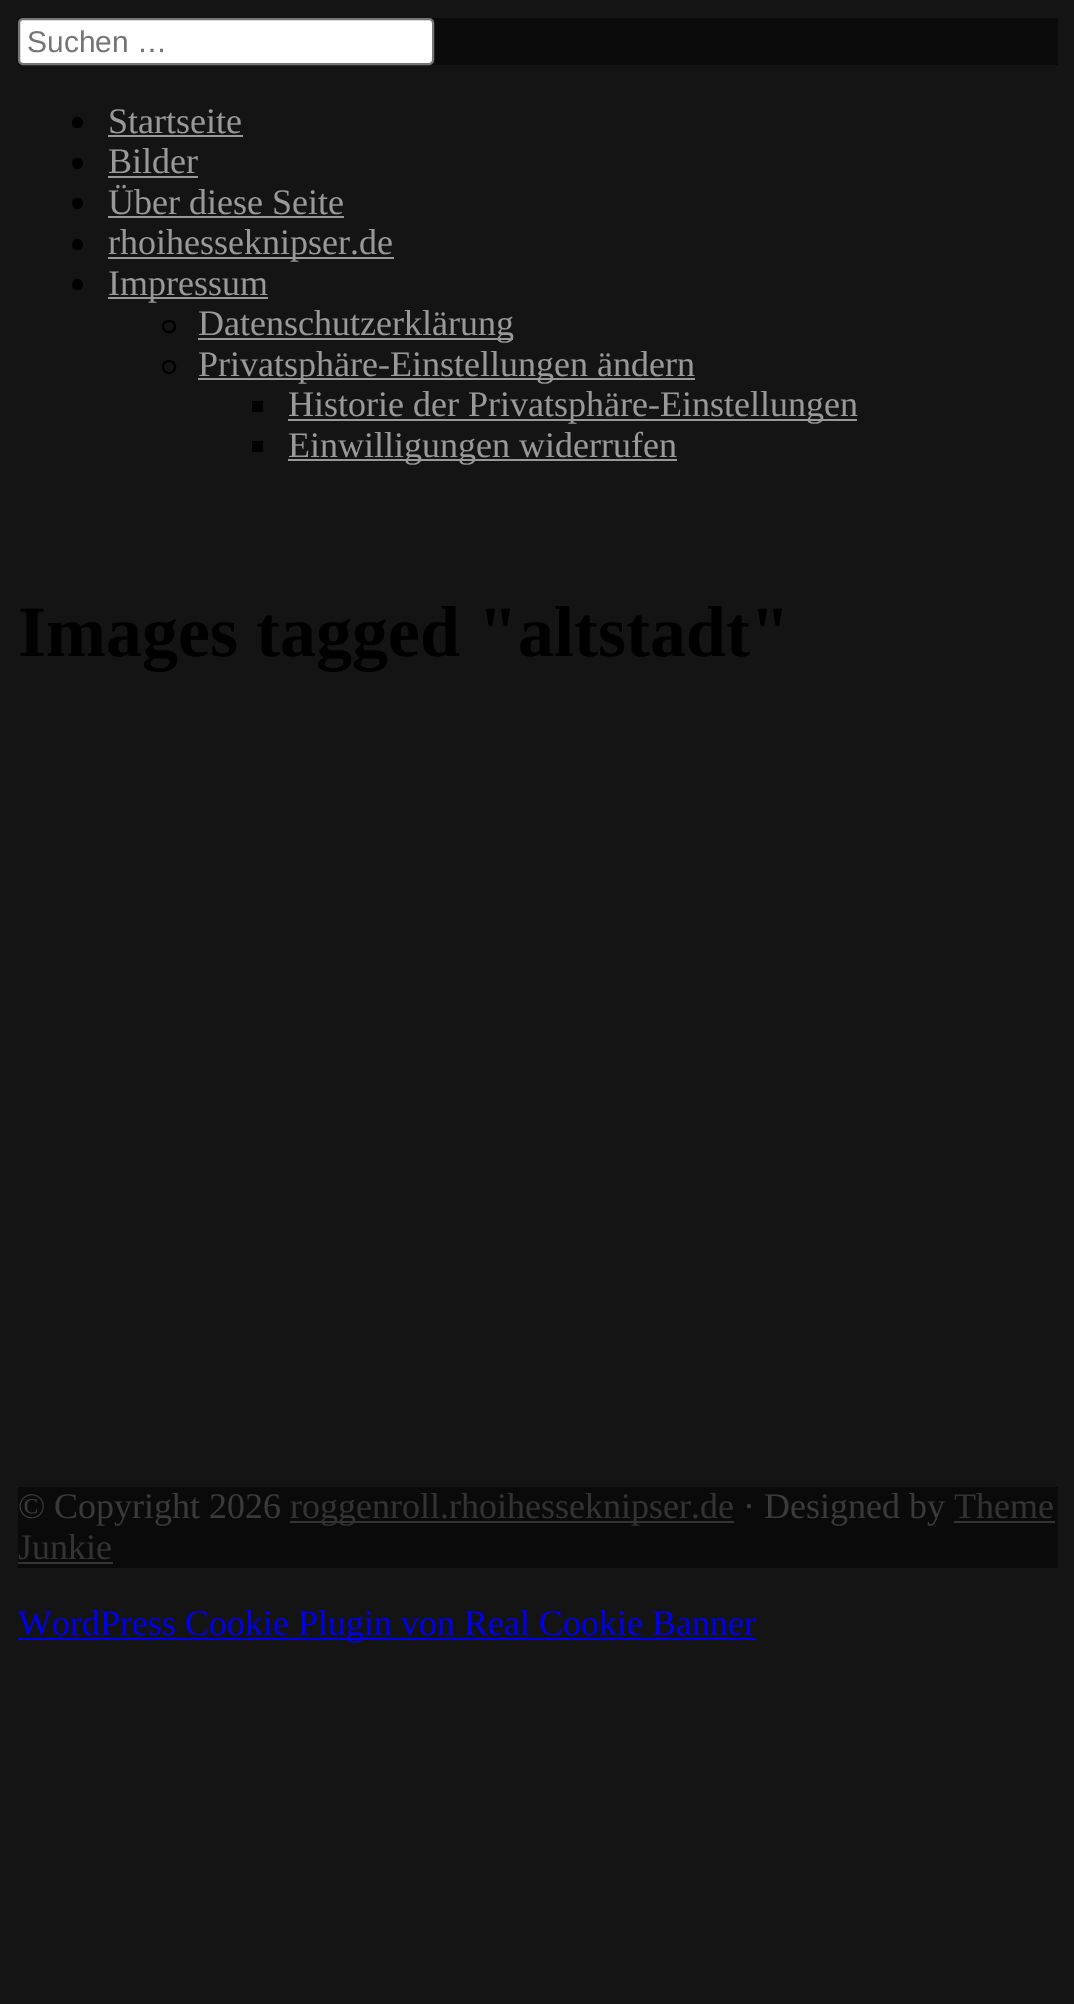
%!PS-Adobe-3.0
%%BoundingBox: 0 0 1074 2004
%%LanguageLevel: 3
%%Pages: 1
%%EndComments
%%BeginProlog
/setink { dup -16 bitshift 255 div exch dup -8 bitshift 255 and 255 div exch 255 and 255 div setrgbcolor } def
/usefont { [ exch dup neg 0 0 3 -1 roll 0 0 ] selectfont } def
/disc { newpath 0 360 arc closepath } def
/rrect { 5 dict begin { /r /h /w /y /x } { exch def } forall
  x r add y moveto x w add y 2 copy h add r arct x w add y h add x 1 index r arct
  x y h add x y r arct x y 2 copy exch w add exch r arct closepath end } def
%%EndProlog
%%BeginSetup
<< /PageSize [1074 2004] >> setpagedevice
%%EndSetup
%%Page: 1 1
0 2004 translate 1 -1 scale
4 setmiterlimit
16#141414 setink
0 0 1074 2004 rectfill
16#0A0A0A setink
18 18 1040 47 rectfill
16#FFFFFF setink
19 19 414 45 4 rrect gsave fill grestore
16#767676 setink
2 setlinewidth
stroke
/LiberationSans-Regular 30 usefont
16#757575 setink
27 52 moveto (Suchen …) show
16#000000 setink
77.5 122.5 5.5 disc fill
/LiberationSerif-Regular 36 usefont
16#999999 setink
108 133 moveto (Startseite) show
108 135 135 2 rectfill
16#000000 setink
77.5 163.5 5.5 disc fill
16#999999 setink
108 173 moveto (Bilder) show
108 176 90 2 rectfill
16#000000 setink
77.5 203.5 5.5 disc fill
16#999999 setink
108 214 moveto (Über diese Seite) show
108 216 236 2 rectfill
16#000000 setink
77.5 244.5 5.5 disc fill
16#999999 setink
108 257 286 2 rectfill
108 254 moveto (rhoihesseknipser.de) show
16#000000 setink
77.5 284.5 5.5 disc fill
16#999999 setink
108 297 160 2 rectfill
108 295 moveto (Impressum) show
16#000000 setink
163 321 12 11 5.5 rrect stroke
16#999999 setink
198 338 315 2 rectfill
198 335 moveto (Datenschutzerklärung) show
16#000000 setink
169 367 6 disc stroke
16#999999 setink
198 378 497 2 rectfill
198 376 moveto (Privatsphäre-Einstellungen ändern) show
16#000000 setink
252 401 11 11 rectfill
16#999999 setink
288 419 569 2 rectfill
288 416 moveto (Historie der Privatsphäre-Einstellungen) show
16#000000 setink
252 441 11 11 rectfill
16#999999 setink
288 459 389 2 rectfill
288 457 moveto (Einwilligungen widerrufen) show
/LiberationSerif-Bold 72 usefont
16#000000 setink
18 656 moveto (Images tagged "altstadt") show
16#0A0A0A setink
18 1487 1040 81 rectfill
/LiberationSerif-Regular 36 usefont
16#3A3A3A setink
18 1518 moveto (© Copyright 2026) show
16#333333 setink
290 1521 444 2 rectfill
290 1518 moveto (roggenroll.rhoihesseknipser.de) show
16#3A3A3A setink
743 1518 moveto (· Designed by) show
16#333333 setink
954 1518 moveto (Theme) show
954 1521 101 2 rectfill
18 1559 moveto (Junkie) show
18 1562 95 2 rectfill
16#0000EE setink
18 1638 738 2 rectfill
18 1635 moveto (WordPress Cookie Plugin von Real Cookie Banner) show
showpage
%%EOF
